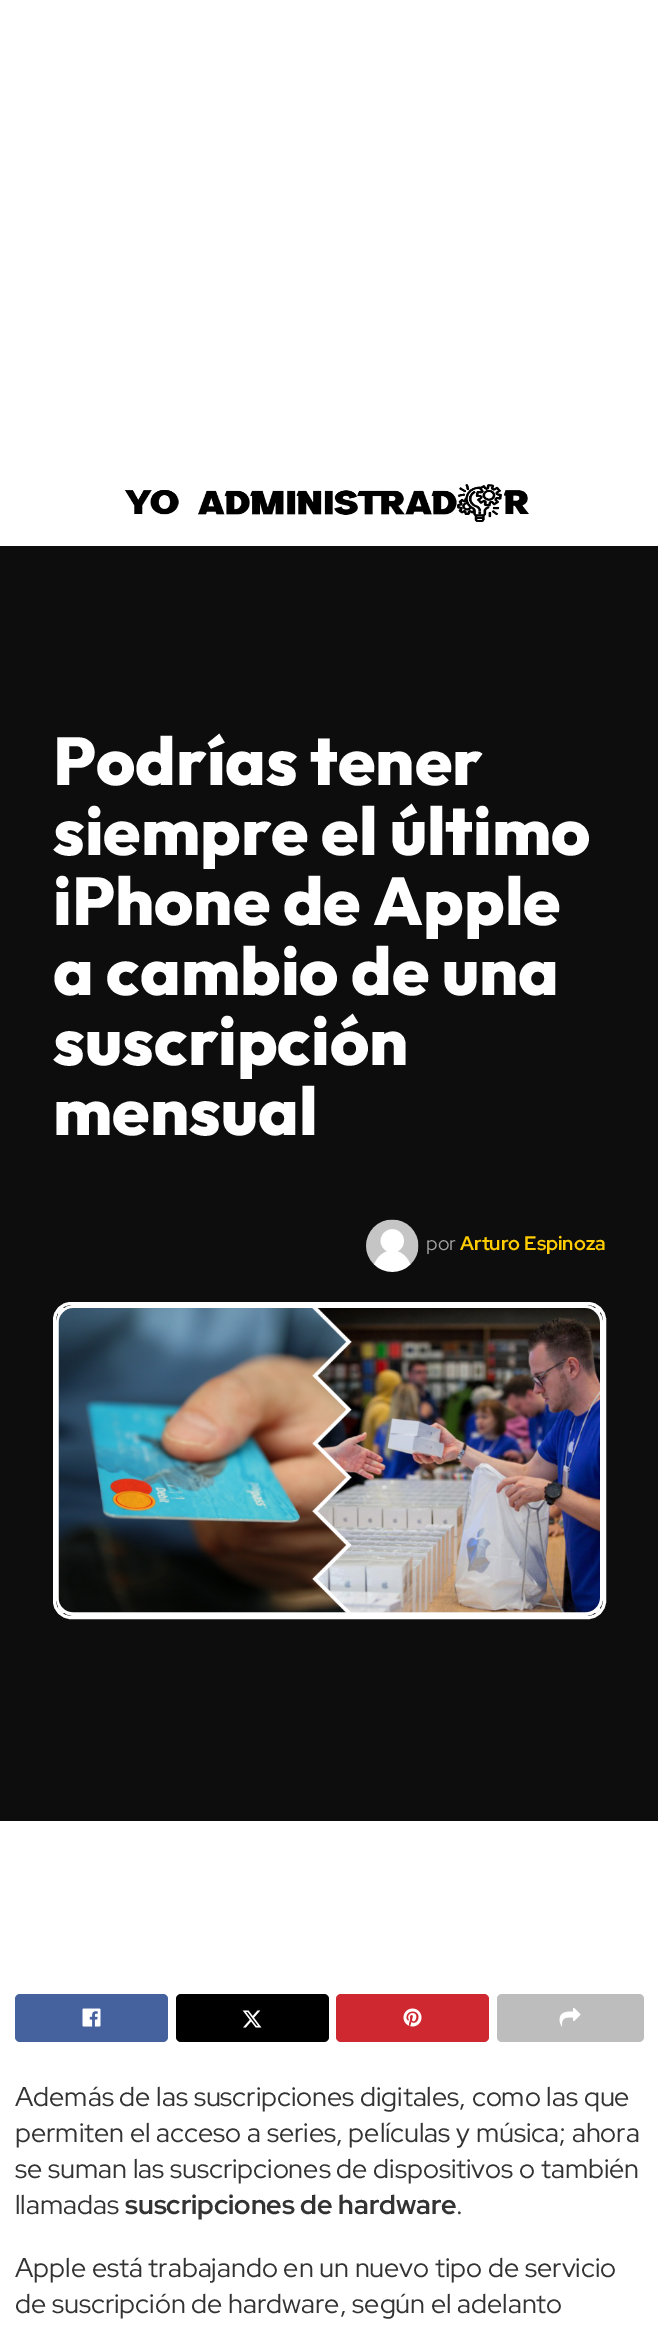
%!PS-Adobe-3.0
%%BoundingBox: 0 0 658 2334
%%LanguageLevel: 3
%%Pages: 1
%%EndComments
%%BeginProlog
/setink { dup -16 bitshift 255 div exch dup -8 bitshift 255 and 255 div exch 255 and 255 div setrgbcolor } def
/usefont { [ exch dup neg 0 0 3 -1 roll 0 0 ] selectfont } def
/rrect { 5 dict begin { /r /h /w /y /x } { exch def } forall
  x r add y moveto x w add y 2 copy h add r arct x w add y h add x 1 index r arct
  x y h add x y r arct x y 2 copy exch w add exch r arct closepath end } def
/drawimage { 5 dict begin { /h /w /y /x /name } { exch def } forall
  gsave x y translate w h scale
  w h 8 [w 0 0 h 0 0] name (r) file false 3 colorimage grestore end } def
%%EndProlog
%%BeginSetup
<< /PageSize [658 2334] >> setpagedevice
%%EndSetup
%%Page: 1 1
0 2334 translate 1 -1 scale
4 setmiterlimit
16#FFFFFF setink
0 0 658 2334 rectfill
(img1.raw) 124 484 405 38 drawimage
16#0D0D0D setink
0 546 658 1275 rectfill
/Outfit-ExtraBold 67.5 usefont
16#FFFFFF setink
[
    [(Podrías tener) 53 785]
    [(siempre el último) 53 855]
    [(iPhone de Apple) 53 925]
    [(a cambio de una) 53 995]
    [(suscripción) 53 1065]
    [(mensual) 53 1135]
] { aload pop moveto show } forall
(img2.raw) 366 1219 53 53 drawimage
/RedHatDisplay-Regular 19.5 usefont
16#A0A0A0 setink
426 1250 moveto (por) show
/RedHatDisplay-Bold 19.5 usefont
16#FFCD00 setink
460 1250 moveto (Arturo Espinoza) show
16#FFFFFF setink
3 setlinewidth
54.5 1303.5 550 314 16.5 rrect stroke
16#F7F7F7 setink
57.5 1306.5 544 308 16.5 rrect gsave fill grestore
16#FFFFFF setink
stroke
(img3.raw) 58 1308 542 305 drawimage
16#45629F setink
15 1994 153 48 5 rrect fill
(img4.raw) 82 2008 19 19 drawimage
16#000000 setink
176 1994 153 48 5 rrect fill
(img5.raw) 242 2010 20 18 drawimage
16#CF2830 setink
336 1994 153 48 5 rrect fill
(img6.raw) 403 2008 19 19 drawimage
16#BDBDBD setink
497 1994 147 48 5 rrect fill
(img7.raw) 559 2007 22 20 drawimage
/RedHatDisplay-Regular 27 usefont
16#333333 setink
[
    [(Además de las suscripciones digitales, como las que) 15 2106]
    [(permiten el acceso a series, películas y música; ahora) 15 2142]
    [(se suman las suscripciones de dispositivos o también) 15 2178]
    [(llamadas) 15 2214]
] { aload pop moveto show } forall
/RedHatDisplay-Bold 27 usefont
125 2214 moveto (suscripciones de hardware) show
/RedHatDisplay-Regular 27 usefont
[
    [(.) 456 2214]
    [(Apple está trabajando en un nuevo tipo de servicio) 15 2277]
    [(de suscripción de hardware, según el adelanto) 15 2313]
] { aload pop moveto show } forall
showpage
%%EOF
